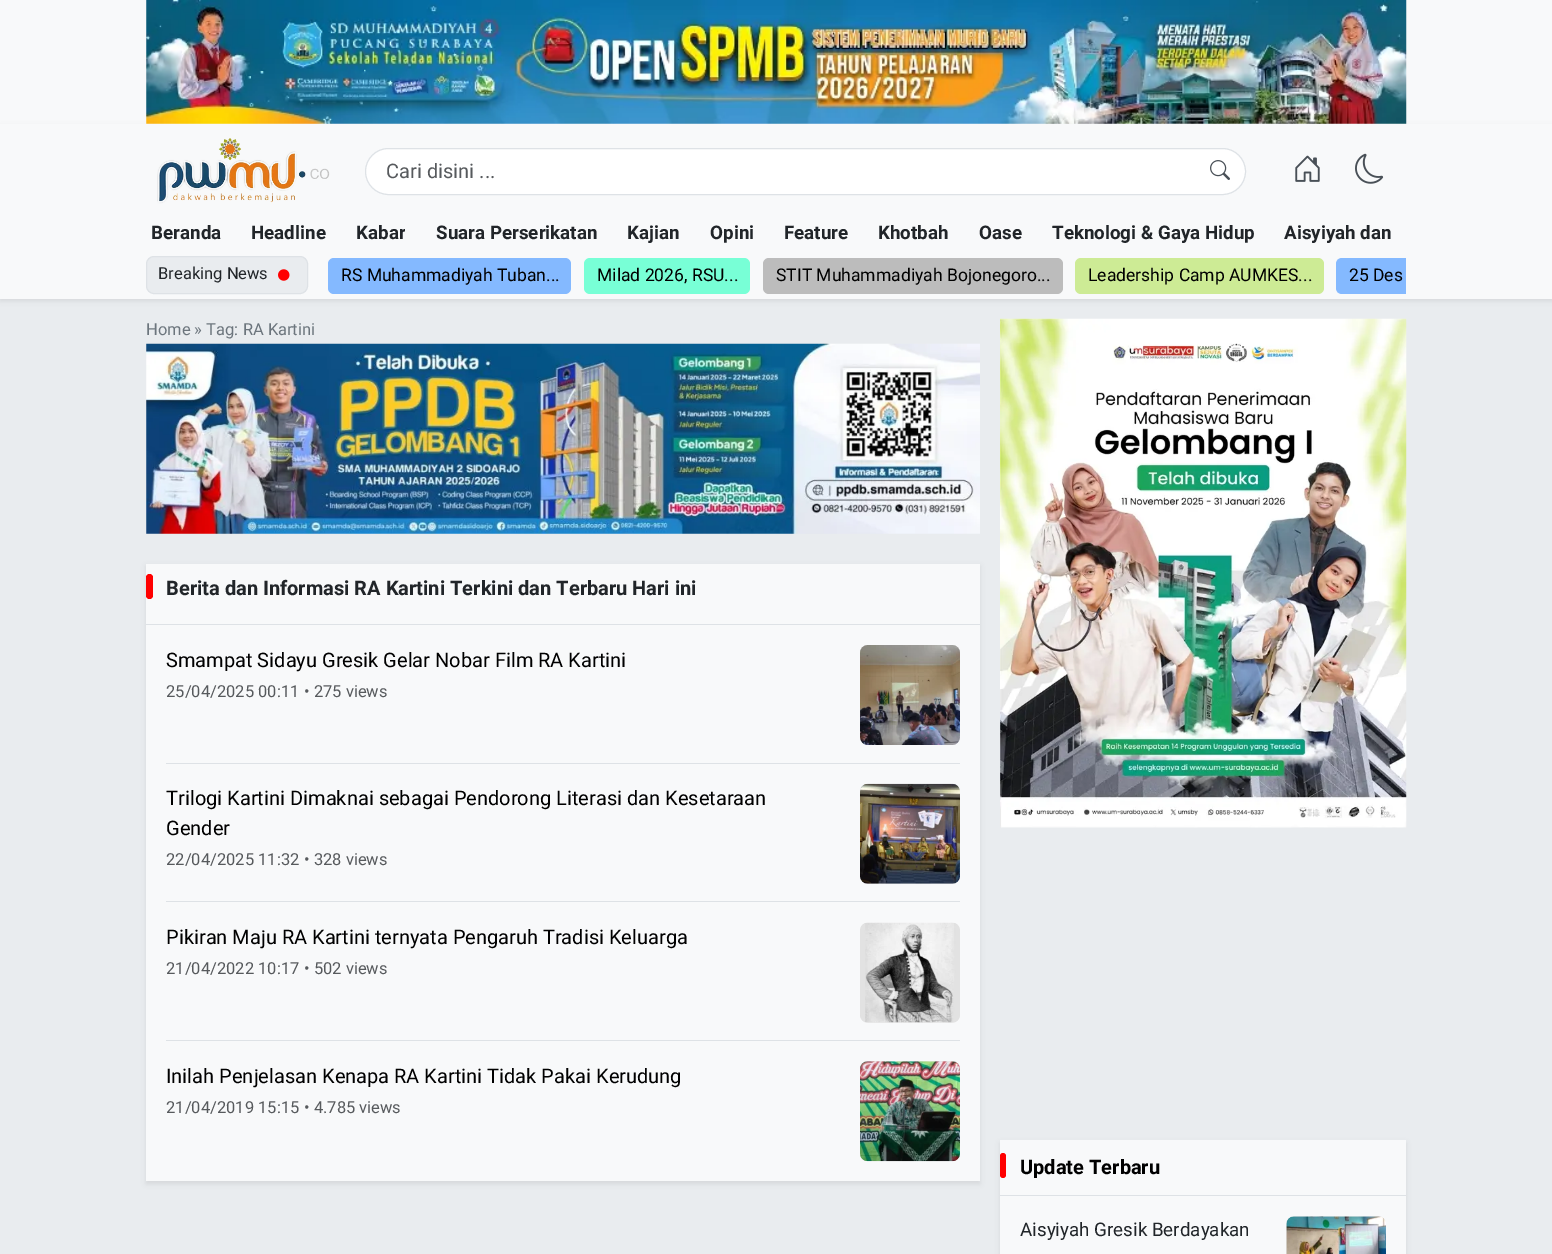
%!PS-Adobe-3.0
%%BoundingBox: 0 0 1552 1254
%%LanguageLevel: 3
%%Pages: 1
%%EndComments
%%BeginProlog
/setink { dup -16 bitshift 255 div exch dup -8 bitshift 255 and 255 div exch 255 and 255 div setrgbcolor } def
/usefont { [ exch dup neg 0 0 3 -1 roll 0 0 ] selectfont } def
/setalpha { dup .setfillconstantalpha .setstrokeconstantalpha } def
/rrect { 5 dict begin { /r /h /w /y /x } { exch def } forall
  x r add y moveto x w add y 2 copy h add r arct x w add y h add x 1 index r arct
  x y h add x y r arct x y 2 copy exch w add exch r arct closepath end } def
/softshadow { 12 dict begin { /a /b /q /h /w /y /x } { exch def } forall gsave /was 0 def
  9 -2 -9 { dup b mul 4 div /e exch def 1 sub .425 mul 2.718 exch exp 1 add a .99 .min exch div /now exch def
    1 1 now sub 1 was sub div sub setalpha /was now def
    w h .min e 2 mul add 0 gt { x e sub y e sub w e 2 mul add h e 2 mul add
      q e add b .6 mul add w h .min 2 div e add .min 0 .max rrect fill } if } for grestore end } def
/drawimage { 5 dict begin { /h /w /y /x /name } { exch def } forall
  gsave x y translate w h scale
  w h 8 [w 0 0 h 0 0] name (r) file false 3 colorimage grestore end } def
%%EndProlog
%%BeginSetup
<< /PageSize [1552 1254] /PageUsesTransparency true >> setpagedevice
%%EndSetup
%%Page: 1 1
0 .pushpdf14devicefilter
0 1254 translate 1 -1 scale
4 setmiterlimit
16#F8F9FA setink
0 0 1552 1254 rectfill
(img1.raw) 146 0 1261 124 drawimage
16#E9ECEF setink
0 299 1552 955 rectfill
16#000000 setink
0 126 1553 175 0 2.5 0.07 softshadow
16#F8F9FA setink
0 124 1552 175 rectfill
(img2.raw) 157 138 173 66 drawimage
16#FFFFFF setink
365.5 148.5 880 46 23 rrect gsave fill grestore
16#DEE2E6 setink
stroke
/Heebo-Regular 20 usefont
16#575A5D setink
386 178 moveto (Cari disini ...) show
(img3.raw) 1210 160 20 20 drawimage
(img4.raw) 1295 155 25 27 drawimage
(img5.raw) 1355 153 29 31 drawimage
/Heebo-Bold 18.75 usefont
16#212529 setink
151 239 moveto (Beranda) show
251 239 moveto (Headline) show
gsave
356 219 49 29 6 rrect clip newpath
356 239 moveto (Kabar) show
grestore
[
    [(Suara Perserikatan) 436 239]
    [(Kajian) 627 239]
    [(Opini) 710 239]
    [(Feature) 784 239]
    [(Khotbah) 878 239]
    [(Oase) 979 239]
    [(Teknologi & Gaya Hidup) 1052 239]
    [(Aisyiyah dan) 1284 239]
] { aload pop moveto show } forall
16#E9ECEF setink
146.5 256.5 161 37 7.5 rrect gsave fill grestore
16#DEE2E6 setink
stroke
/Heebo-Regular 16.5 usefont
16#212529 setink
158 279 moveto (Breaking News) show
(img6.raw) 278 269 12 12 drawimage
16#84B9FF setink
328 258 243 36 6 rrect fill
/Heebo-Regular 17.5 usefont
16#000000 setink
341 281 moveto (RS Muhammadiyah Tuban...) show
16#78FFD6 setink
584 258 166 36 6 rrect fill
16#000000 setink
597 281 moveto (Milad 2026, RSU...) show
16#BCBCBC setink
763 258 300 36 6 rrect fill
16#000000 setink
776 281 moveto (STIT Muhammadiyah Bojonegoro...) show
16#CDEB95 setink
1075 258 249 36 6 rrect fill
16#000000 setink
1088 281 moveto (Leadership Camp AUMKES...) show
16#84B9FF setink
1342 258 moveto 1406 258 lineto 1406 294 lineto 1342 294 lineto 1338.5 294 1336 291.5 1336 288 curveto 1336 264 lineto 1336 260.5 1338.5 258 1342 258 curveto closepath fill
16#000000 setink
1349 281 moveto (25 Des) show
/Heebo-Regular 16.5 usefont
16#6C757D setink
146 335 moveto (Home » Tag: RA Kartini) show
(img7.raw) 146 343 834 191 drawimage
16#000000 setink
146 566 834 618 0 2.5 0.07 softshadow
16#F8F9FA setink
146 564 834 617 rectfill
16#DEE2E6 setink
146 624 834 1 rectfill
16#FF0000 setink
146 574 7 25 3.5 rrect fill
/Heebo-Bold 20 usefont
16#212529 setink
166 595 moveto (Berita dan Informasi RA Kartini Terkini dan Terbaru Hari ini) show
16#DEE2E6 setink
166 763 794 1 rectfill
/Heebo-Regular 20 usefont
16#000000 setink
166 667 moveto (Smampat Sidayu Gresik Gelar Nobar Film RA Kartini) show
/Heebo-Regular 16.5 usefont
16#575A5D setink
[
    [(25/04/2025) 166 697]
    [(00:11) 258 697]
    [(• 275 views) 304 697]
] { aload pop moveto show } forall
(img8.raw) 860 645 100 100 drawimage
16#DEE2E6 setink
166 901 794 1 rectfill
/Heebo-Regular 20 usefont
16#000000 setink
166 805 moveto (Trilogi Kartini Dimaknai sebagai Pendorong Literasi dan Kesetaraan) show
166 835 moveto (Gender) show
/Heebo-Regular 16.5 usefont
16#575A5D setink
[
    [(22/04/2025) 166 865]
    [(11:32) 258 865]
    [(• 328 views) 304 865]
] { aload pop moveto show } forall
16#E9E9E9 setink
860 784 100 100 8 rrect fill
(img9.raw) 860 783 100 101 drawimage
16#DEE2E6 setink
166 1040 794 1 rectfill
/Heebo-Regular 20 usefont
16#000000 setink
166 944 moveto (Pikiran Maju RA Kartini ternyata Pengaruh Tradisi Keluarga) show
/Heebo-Regular 16.5 usefont
16#575A5D setink
[
    [(21/04/2022) 166 974]
    [(10:17) 258 974]
    [(• 502 views) 304 974]
] { aload pop moveto show } forall
16#E9E9E9 setink
860 923 100 100 8 rrect fill
(img10.raw) 860 922 100 101 drawimage
/Heebo-Regular 20 usefont
16#000000 setink
166 1083 moveto (Inilah Penjelasan Kenapa RA Kartini Tidak Pakai Kerudung) show
/Heebo-Regular 16.5 usefont
16#575A5D setink
[
    [(21/04/2019) 166 1113]
    [(15:15) 258 1113]
    [(• 4.785 views) 304 1113]
] { aload pop moveto show } forall
16#E9E9E9 setink
860 1061 100 100 8 rrect fill
(img11.raw) 860 1061 100 101 drawimage
(img12.raw) 1000 318 407 510 drawimage
16#000000 setink
1000 1143 406 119 0 2.5 0.07 softshadow
16#F8F9FA setink
1000 1140 406 114 rectfill
16#DEE2E6 setink
1000 1195 406 1 rectfill
16#FF0000 setink
1000 1153 6 25 3 rrect fill
/Heebo-Bold 20 usefont
16#000000 setink
1020 1174 moveto (Update Terbaru) show
/Heebo-Regular 18.75 usefont
16#212529 setink
1020 1236 moveto (Aisyiyah Gresik Berdayakan) show
16#E9E9E9 setink
1286 1216 100 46 8 rrect fill
(img13.raw) 1286 1216 100 38 drawimage
.poppdf14devicefilter showpage
%%EOF
